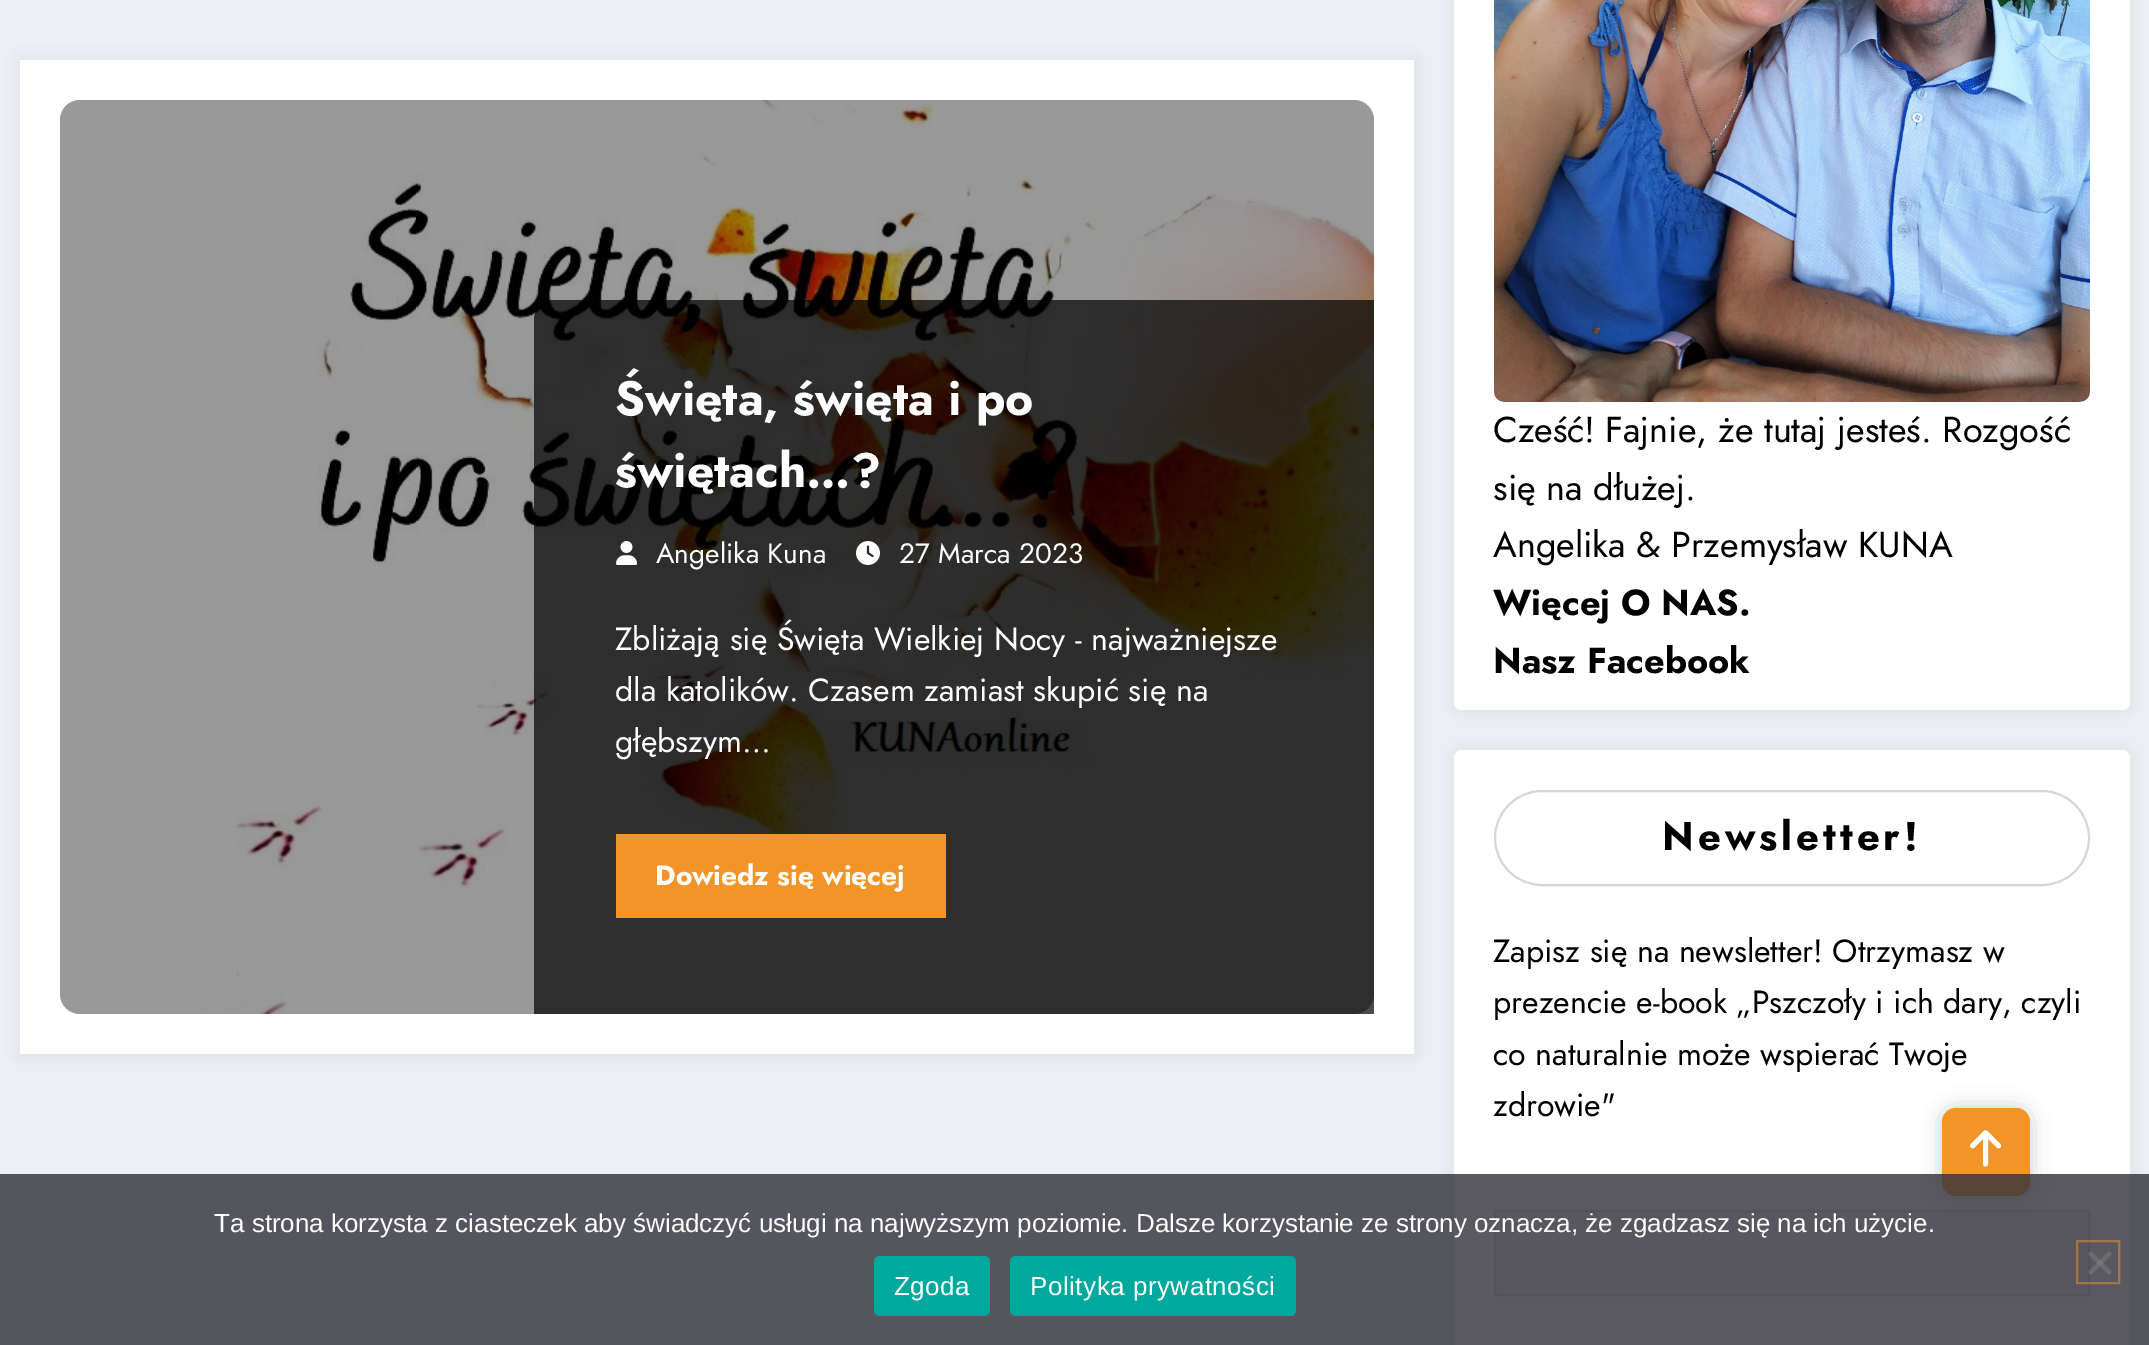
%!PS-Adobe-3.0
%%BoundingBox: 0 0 2149 1345
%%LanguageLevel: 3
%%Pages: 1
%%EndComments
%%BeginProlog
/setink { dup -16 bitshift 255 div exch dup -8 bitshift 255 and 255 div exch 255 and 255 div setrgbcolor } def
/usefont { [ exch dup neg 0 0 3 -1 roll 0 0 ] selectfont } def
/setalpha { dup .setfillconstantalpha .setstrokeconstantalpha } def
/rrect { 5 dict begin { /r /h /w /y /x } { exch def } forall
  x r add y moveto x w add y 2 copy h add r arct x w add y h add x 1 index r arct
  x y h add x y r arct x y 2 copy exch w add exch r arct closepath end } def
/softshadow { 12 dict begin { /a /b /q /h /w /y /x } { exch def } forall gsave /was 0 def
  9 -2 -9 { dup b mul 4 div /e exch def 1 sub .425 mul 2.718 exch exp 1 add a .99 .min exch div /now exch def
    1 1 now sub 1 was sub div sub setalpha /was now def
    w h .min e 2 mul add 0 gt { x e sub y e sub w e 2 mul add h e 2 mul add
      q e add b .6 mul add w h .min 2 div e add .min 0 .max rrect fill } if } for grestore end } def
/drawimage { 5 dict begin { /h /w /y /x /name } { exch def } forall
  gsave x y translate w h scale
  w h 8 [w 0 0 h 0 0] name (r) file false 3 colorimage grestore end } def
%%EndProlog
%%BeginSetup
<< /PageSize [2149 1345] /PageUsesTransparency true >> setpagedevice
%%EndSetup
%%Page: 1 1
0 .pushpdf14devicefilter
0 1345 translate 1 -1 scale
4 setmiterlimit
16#EEEEF5 setink
0 0 2149 1345 rectfill
16#171723 setink
16 56 1402 1002 0 8 0.05 softshadow
16#FFFFFF setink
20 60 1394 994 rectfill
(img1.raw) 197 100 1177 914 drawimage
0.4 setalpha
16#000000 setink
60 100 1314 914 20 rrect fill
0.7 setalpha
554 300 moveto 1374 300 lineto 1374 1014 lineto 534 1014 lineto 534 320 lineto 534 309 543 300 554 300 curveto closepath fill
/Jost-Bold 48 usefont
1 setalpha
16#FEFEFE setink
615 415 moveto (Święta, święta i po) show
615 487 moveto (świętach…?) show
(img2.raw) 616 541 21 24 drawimage
/Jost-Regular 28 usefont
656 563 moveto (Angelika Kuna) show
(img3.raw) 856 541 24 24 drawimage
899 563 moveto (27 Marca 2023) show
/Jost-Regular 32 usefont
[
    [(Zbliżają się Święta Wielkiej Nocy - najważniejsze) 615 650]
    [(dla katolików. Czasem zamiast skupić się na) 615 701]
    [(głębszym…) 615 752]
] { aload pop moveto show } forall
16#F39429 setink
616 834 330 84 rectfill
/Jost-Bold 28 usefont
16#FEFEFE setink
655 885 moveto (Dowiedz się więcej) show
16#171723 setink
1450 -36 684 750 12 8 0.05 softshadow
16#FFFFFF setink
1454 -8 676 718 8 rrect fill
(img4.raw) 1494 0 596 402 drawimage
/Jost-Regular 36 usefont
16#000000 setink
[
    [(Cześć!) 1493 442]
    [(Fajnie, że tutaj jesteś. Rozgość) 1605 442]
    [(się na dłużej.) 1493 500]
    [(Angelika & Przemysław KUNA) 1493 557]
] { aload pop moveto show } forall
/Jost-Bold 36 usefont
1493 615 moveto (Więcej O NAS.) show
1493 673 moveto (Nasz Facebook) show
16#171723 setink
1450 746 684 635 12 8 0.05 softshadow
16#FFFFFF setink
1454 750 676 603 8 rrect fill
16#D7D7D7 setink
2 setlinewidth
1495 791 594 94 47 rrect stroke
/Jost-Bold 40 usefont
16#000000 setink
1662 850 moveto 4 0 (Newsletter!) ashow
/Jost-Regular 32 usefont
[
    [(Zapisz się na newsletter! Otrzymasz w) 1493 962]
    [(prezencie e-book „Pszczoły i ich dary, czyli) 1493 1013]
    [(co naturalnie może wspierać Twoje) 1493 1065]
    [(zdrowie") 1493 1116]
] { aload pop moveto show } forall
16#F4F4F4 setink
1495 1211 moveto 2089 1211 lineto 2089 1295 lineto 1495 1295 lineto closepath gsave fill grestore
16#DDDDDD setink
stroke
16#000000 setink
1942 1108 88 88 14 10 0.2 softshadow
16#F39429 setink
1942 1108 88 88 14 rrect fill
(img5.raw) 1970 1130 32 37 drawimage
0.81 setalpha
16#32323A setink
0 1174 2149 171 rectfill
/LiberationSans-Regular 26 usefont
1 setalpha
16#FEFEFE setink
214 1232 moveto (Ta strona korzysta z ciasteczek aby świadczyć usługi na najwyższym poziomie. Dalsze korzystanie ze strony oznacza, że zgadzasz się na ich użycie.) show
0.5 setalpha
16#F39429 setink
2077 1241 42 42 rectstroke
16#808080 setink
2109 1251 moveto 2112 1254 lineto 2091 1275 lineto 2088 1272 lineto closepath fill
2088 1254 moveto 2091 1251 lineto 2112 1272 lineto 2109 1275 lineto closepath fill
1 setalpha
16#00A99D setink
874 1256 116 60 6 rrect fill
16#FEFEFE setink
894 1295 moveto 0.5 0 (Zgoda) ashow
16#00A99D setink
1010 1256 286 60 6 rrect fill
16#FEFEFE setink
1030 1295 moveto 0.5 0 (Polityka prywatności) ashow
.poppdf14devicefilter showpage
%%EOF
